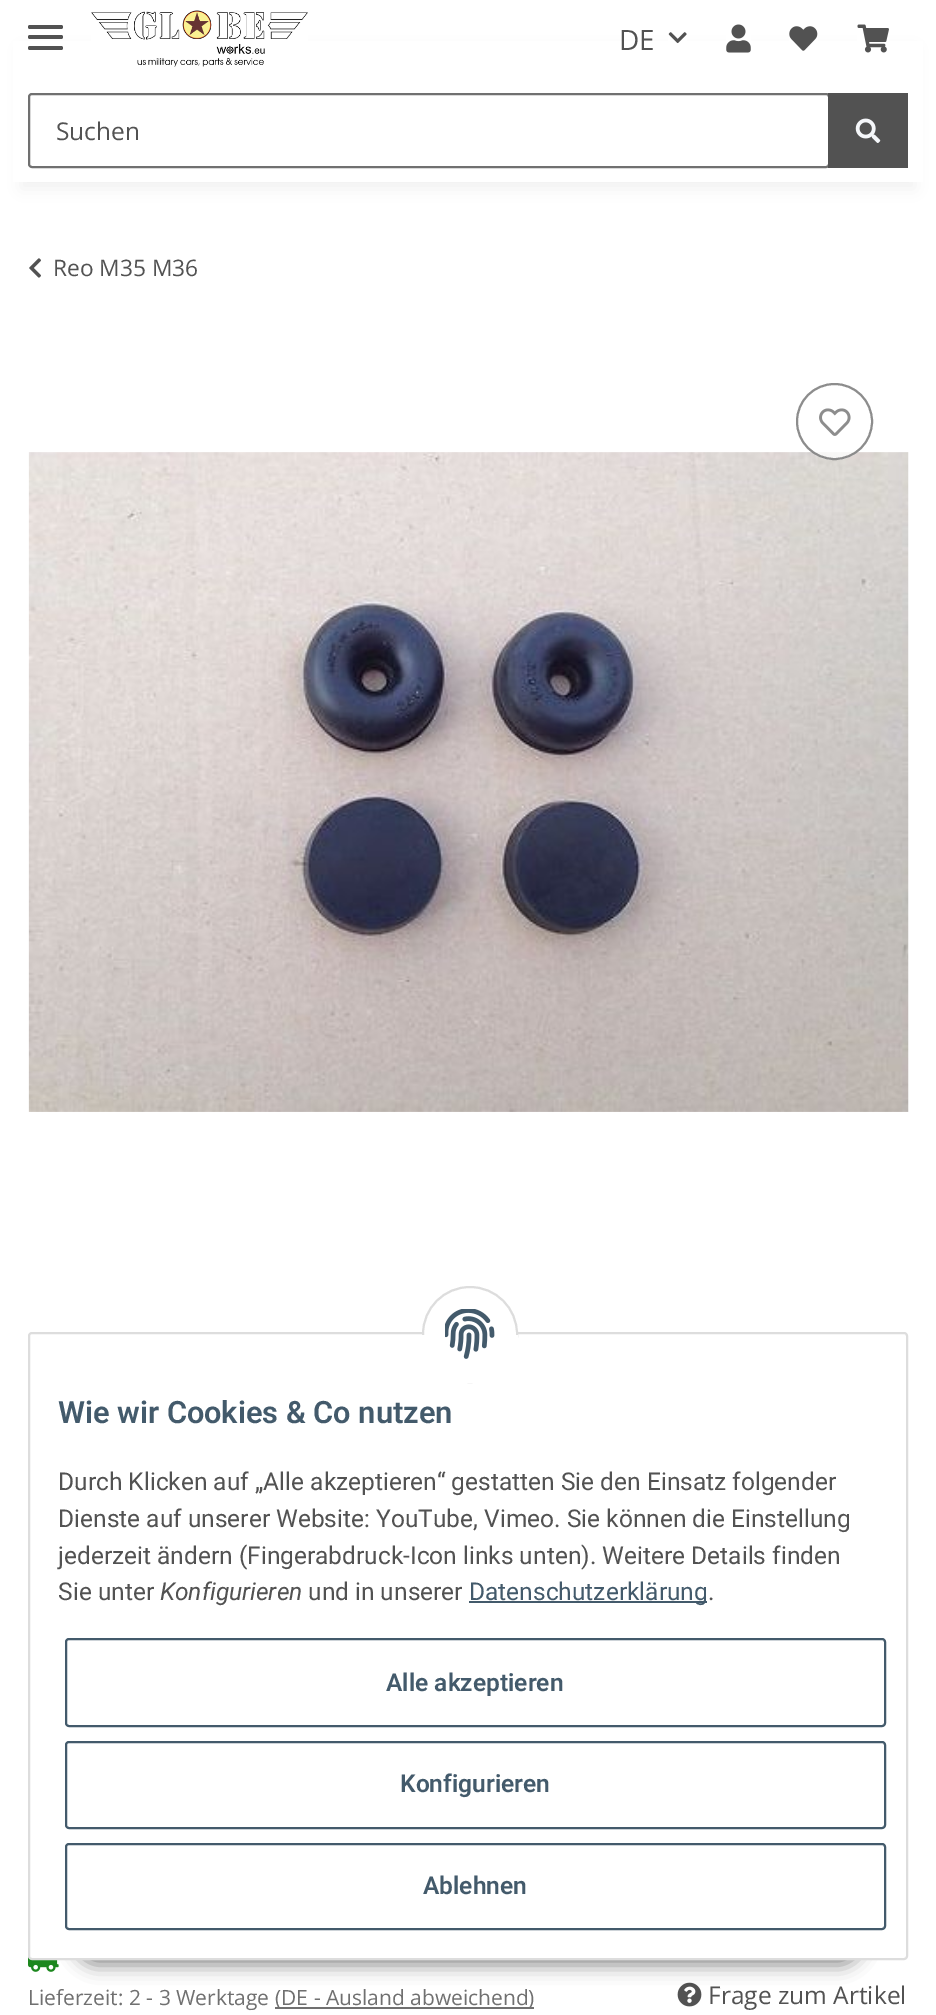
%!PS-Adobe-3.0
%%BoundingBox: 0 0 936 2015
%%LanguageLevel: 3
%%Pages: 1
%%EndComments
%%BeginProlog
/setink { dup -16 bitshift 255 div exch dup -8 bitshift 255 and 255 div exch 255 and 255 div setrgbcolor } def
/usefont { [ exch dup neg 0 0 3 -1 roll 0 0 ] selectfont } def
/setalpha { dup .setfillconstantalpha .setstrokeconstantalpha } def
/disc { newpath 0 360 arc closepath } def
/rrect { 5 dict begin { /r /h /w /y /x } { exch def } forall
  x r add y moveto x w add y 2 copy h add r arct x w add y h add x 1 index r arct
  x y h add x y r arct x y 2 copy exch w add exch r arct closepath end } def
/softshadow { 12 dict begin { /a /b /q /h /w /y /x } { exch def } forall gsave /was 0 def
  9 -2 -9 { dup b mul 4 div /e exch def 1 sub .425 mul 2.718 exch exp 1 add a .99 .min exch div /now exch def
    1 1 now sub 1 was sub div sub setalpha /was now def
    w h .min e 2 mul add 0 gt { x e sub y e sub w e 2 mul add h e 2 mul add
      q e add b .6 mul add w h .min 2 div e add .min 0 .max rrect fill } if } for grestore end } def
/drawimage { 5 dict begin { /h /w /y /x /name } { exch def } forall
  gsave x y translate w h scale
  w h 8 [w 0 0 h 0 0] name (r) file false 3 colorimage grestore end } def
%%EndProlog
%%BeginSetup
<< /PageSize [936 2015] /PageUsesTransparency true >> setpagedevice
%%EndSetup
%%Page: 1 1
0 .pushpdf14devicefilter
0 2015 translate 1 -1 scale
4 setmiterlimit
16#FFFFFF setink
0 0 936 2015 rectfill
16#000000 setink
21 49 894 140 0 8 0.06 softshadow
16#FFFFFF setink
13 41 910 141 rectfill
16#525252 setink
28 35 35 4 2 rrect fill
28 25 35 4 2 rrect fill
28 46 35 4 2 rrect fill
(img1.raw) 91 10 217 57 drawimage
/OpenSans-Regular 28 usefont
619 50 moveto (DE) show
(img2.raw) 668 32 19 12 drawimage
(img3.raw) 726 24 25 29 drawimage
(img4.raw) 789 26 29 25 drawimage
(img5.raw) 857 24 32 29 drawimage
16#707070 setink
2 setlinewidth
29 94 800 73 3 rrect stroke
/OpenSans-Regular 24.5 usefont
16#525252 setink
56 140 moveto (Suchen) show
828 93 80 75 rectfill
(img6.raw) 855 118 26 25 drawimage
(img7.raw) 29 258 12 20 drawimage
/OpenSans-Regular 22.75 usefont
53 276 moveto (Reo M35 M36) show
(img9.raw) 28 452 881 660 drawimage
0.8 setalpha
16#FFFFFF setink
834.5 421.5 38.5 disc fill
16#707070 setink
834.5 421.5 37.5 disc stroke
1 setalpha
(img8.raw) 819 408 32 28 drawimage
(img10.raw) 28 1956 31 16 drawimage
/OpenSans-Regular 21 usefont
28 2005 moveto (Lieferzeit: 2 - 3 Werktage) show
275 2007 259 2 rectfill
275 2005 moveto (\(DE - Ausland abweichend\)) show
(img11.raw) 677 1982 25 25 drawimage
/OpenSans-Regular 24.5 usefont
16#525252 setink
708 2004 moveto (Frage zum Artikel) show
16#000000 setink
74 1909 789 56 28 9 0.45 softshadow
16#FFFFFF setink
29 1333 878 626 3 rrect gsave fill grestore
16#DDDDDD setink
stroke
16#FFFFFF setink
423 1287 94 95 47 rrect gsave fill grestore
16#DDDDDD setink
stroke
16#FFFFFF setink
422 1335 96 48 rectfill
(img12.raw) 445 1309 50 50 drawimage
/Roboto-SemiBold 30.75 usefont
16#435A6B setink
58 1423 moveto (Wie wir Cookies & Co nutzen) show
/Roboto-Regular 24.5 usefont
16#525252 setink
[
    [(Durch Klicken auf „Alle akzeptieren“ gestatten Sie den Einsatz folgender) 58 1490]
    [(Dienste auf unserer Website: YouTube, Vimeo. Sie können die Einstellung) 58 1527]
    [(jederzeit ändern \(Fingerabdruck-Icon links unten\). Weitere Details finden) 58 1564]
    [(Sie unter) 58 1600]
] { aload pop moveto show } forall
/Roboto-Italic 24.5 usefont
160 1600 moveto (Konfigurieren) show
/Roboto-Regular 24.5 usefont
308 1600 moveto (und in unserer) show
16#435A6B setink
469 1601 238 2 rectfill
469 1600 moveto (Datenschutzerklärung) show
16#525252 setink
708 1600 moveto (.) show
16#435A6B setink
66 1639 819 87 3 rrect stroke
/Roboto-SemiBold 24.5 usefont
386 1691 moveto (Alle akzeptieren) show
66 1742 819 86 3 rrect stroke
400 1792 moveto (Konfigurieren) show
66 1844 819 85 3 rrect stroke
423 1894 moveto (Ablehnen) show
.poppdf14devicefilter showpage
%%EOF
